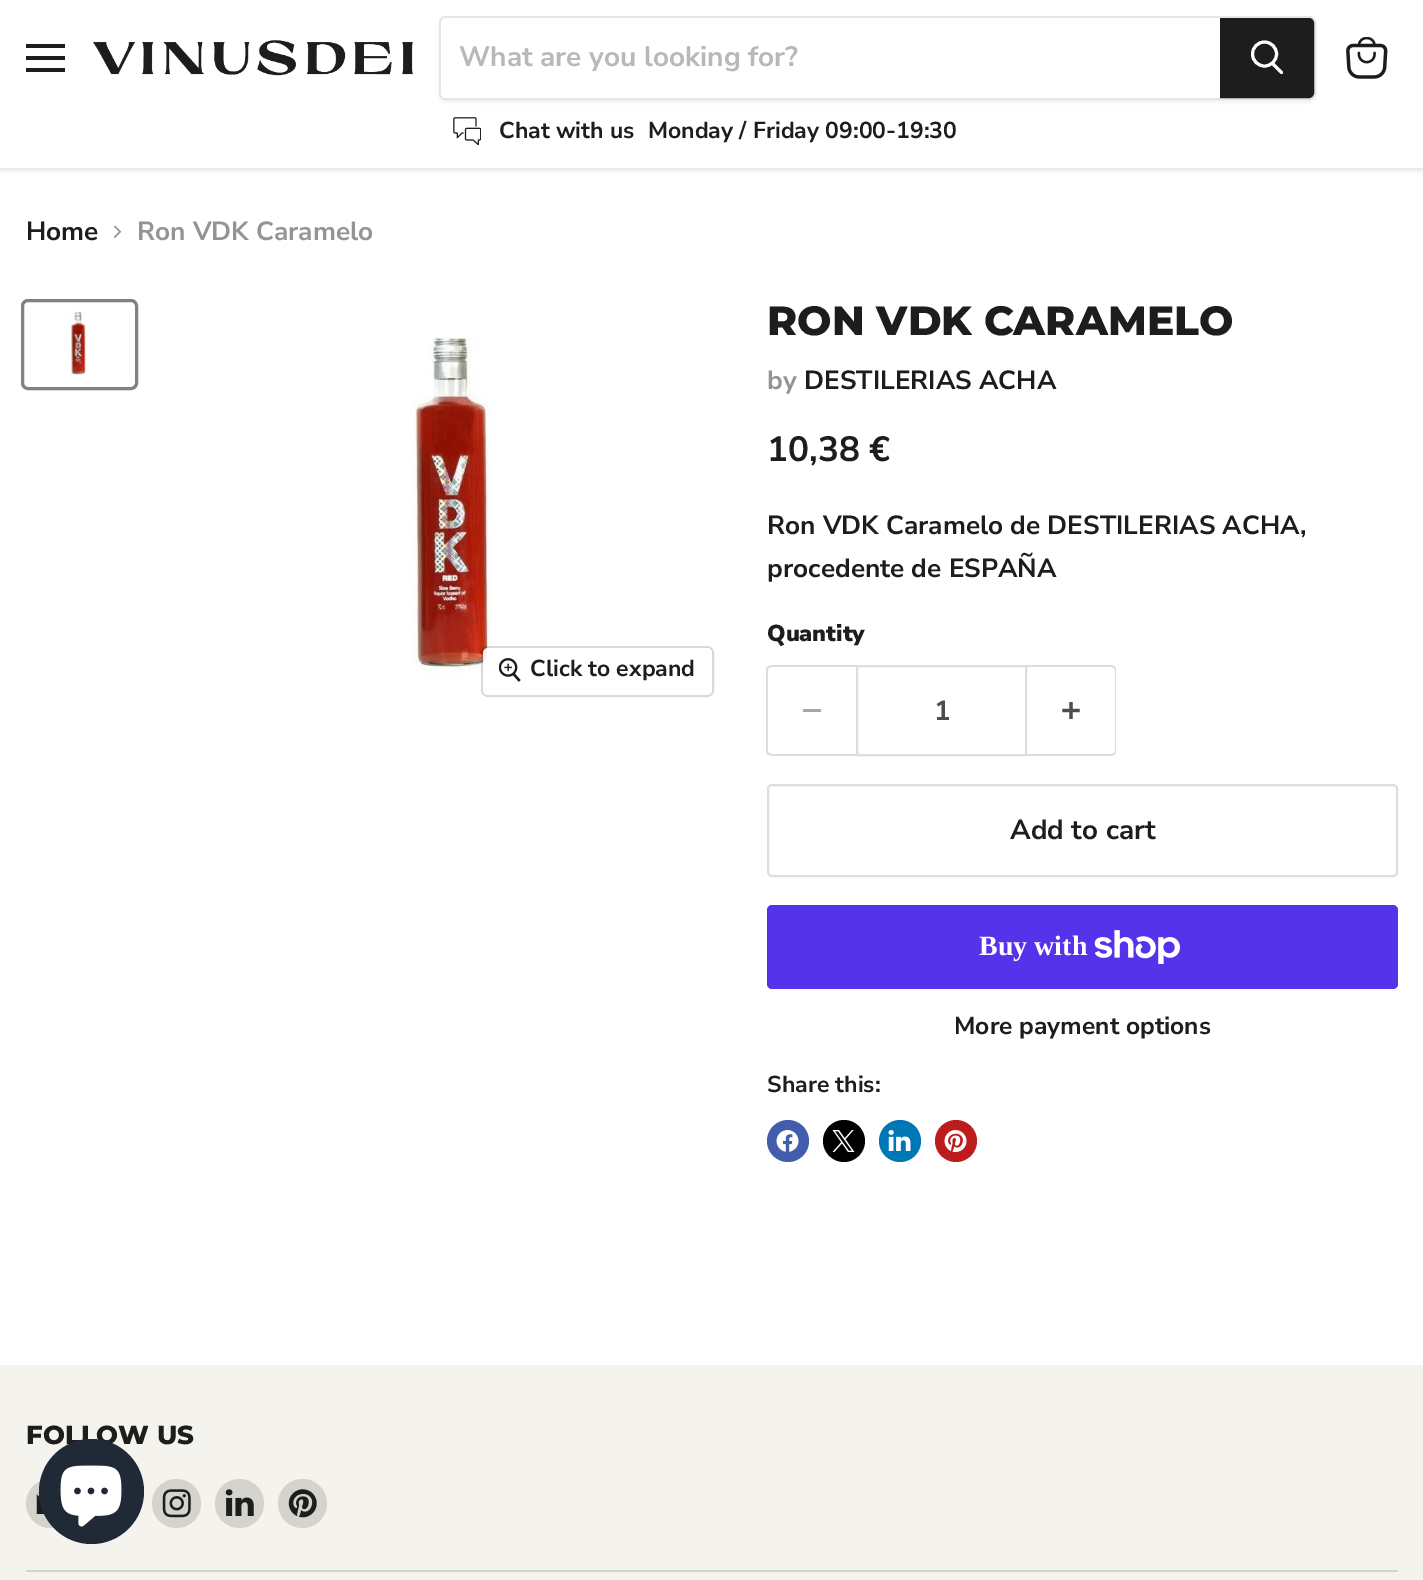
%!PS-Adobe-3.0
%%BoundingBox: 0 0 1423 1580
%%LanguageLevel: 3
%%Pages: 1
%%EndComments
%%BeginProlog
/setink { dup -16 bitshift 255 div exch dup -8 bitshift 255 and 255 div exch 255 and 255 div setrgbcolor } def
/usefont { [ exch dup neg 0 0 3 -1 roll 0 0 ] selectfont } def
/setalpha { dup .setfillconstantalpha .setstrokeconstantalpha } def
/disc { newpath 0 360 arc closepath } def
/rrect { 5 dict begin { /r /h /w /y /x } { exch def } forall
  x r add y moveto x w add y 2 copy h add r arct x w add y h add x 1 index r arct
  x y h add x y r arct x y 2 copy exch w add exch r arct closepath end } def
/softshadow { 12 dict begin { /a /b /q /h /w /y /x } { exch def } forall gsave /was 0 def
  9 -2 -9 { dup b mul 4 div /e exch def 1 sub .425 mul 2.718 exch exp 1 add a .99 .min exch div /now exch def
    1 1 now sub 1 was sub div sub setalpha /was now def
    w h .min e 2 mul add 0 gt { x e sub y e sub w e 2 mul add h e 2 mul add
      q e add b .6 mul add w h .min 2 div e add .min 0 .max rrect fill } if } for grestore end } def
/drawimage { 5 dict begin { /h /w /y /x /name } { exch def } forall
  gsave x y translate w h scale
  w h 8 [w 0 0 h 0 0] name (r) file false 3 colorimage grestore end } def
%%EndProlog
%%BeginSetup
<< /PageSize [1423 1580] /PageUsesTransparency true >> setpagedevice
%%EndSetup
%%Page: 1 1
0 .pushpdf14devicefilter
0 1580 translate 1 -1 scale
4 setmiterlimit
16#FFFFFF setink
0 0 1423 1580 rectfill
gsave
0 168 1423 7 rectclip
16#808080 setink
0 2 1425 168 0 3.5 0.25 softshadow
grestore
[
    [26 44 39 4 16#1D1D1D]
    [26 56 39 4 16#1D1D1D]
    [26 68 39 4 16#1D1D1D]
] { aload pop setink rectfill } forall
(img1.raw) 93 40 320 36 drawimage
gsave
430 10 moveto 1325 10 lineto 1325 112 lineto 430 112 lineto closepath 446 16 moveto 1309 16 lineto 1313 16 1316 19 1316 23 curveto 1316 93 lineto 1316 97 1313 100 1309 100 curveto 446 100 lineto 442 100 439 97 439 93 curveto 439 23 lineto 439 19 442 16 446 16 curveto closepath eoclip newpath
16#808080 setink
439 19 877 84 7 2.5 0.11 softshadow
grestore
0.2 setalpha
16#808080 setink
2 setlinewidth
440 17 875 82 6 rrect stroke
1 setalpha
16#FFFFFF setink
446 18 moveto 1220 18 lineto 1220 98 lineto 446 98 lineto 443 98 441 96 441 93 curveto 441 23 lineto 441 20 443 18 446 18 curveto closepath fill
/NunitoSans-Bold 28 usefont
16#B8B8B8 setink
459 66 moveto (What are you looking for?) show
16#1D1D1D setink
1221 19 moveto 1309 19 lineto 1311 19 1313 21 1313 23 curveto 1313 93 lineto 1313 95 1311 97 1309 97 curveto 1221 97 lineto closepath gsave fill grestore
stroke
16#FFFFFF setink
3 setlinewidth
1 setlinecap
1281.5 72.5 moveto 1273 64 lineto stroke
0 setlinecap
1264.5 54 12 disc stroke
(img2.raw) 453 117 28 28 drawimage
/NunitoSans-Bold 23 usefont
16#1D1D1D setink
499 138 moveto (Chat with us) show
648 138 moveto (Monday / Friday 09:00-19:30) show
(img3.raw) 1346 37 42 42 drawimage
/NunitoSans-Bold 26.25 usefont
26 240 moveto (Home) show
(img4.raw) 114 225 8 14 drawimage
16#949494 setink
137 240 moveto (Ron VDK Caramelo) show
16#818181 setink
22.5 300.5 114 88 5.5 rrect stroke
(img5.raw) 68 311 18 67 drawimage
(img6.raw) 410 337 84 338 drawimage
0.15 setalpha
16#000000 setink
2 setlinewidth
482 647 231 49 6 rrect stroke
0.9 setalpha
16#FFFFFF setink
483 648 229 47 5 rrect fill
1 setalpha
(img7.raw) 499 658 22 24 drawimage
/NunitoSans-Bold 23 usefont
16#1D1D1D setink
530 676 moveto (Click to expand) show
/Montserrat-ExtraBold 40.75 usefont
767 335 moveto (RON VDK CARAMELO) show
/NunitoSans-Bold 26.25 usefont
16#949494 setink
767 389 moveto (by) show
16#1D1D1D setink
804 389 moveto (DESTILERIAS ACHA) show
/NunitoSans-Bold 35 usefont
767 461 moveto (10,38 €) show
/NunitoSans-Bold 26.25 usefont
767 534 moveto (Ron VDK Caramelo de DESTILERIAS ACHA,) show
767 577 moveto (procedente de ESPAÑA) show
/NunitoSans-Black 23 usefont
767 641 moveto (Quantity) show
16#DDDDDD setink
772 665 moveto 856 665 lineto 856 756 lineto 772 756 lineto 769 756 766 754 766 751 curveto 766 670 lineto 766 667 769 665 772 665 curveto closepath 772 667 moveto 856 667 lineto 856 754 lineto 772 754 lineto 770 754 768 753 768 751 curveto 768 670 lineto 768 668 770 667 772 667 curveto closepath eofill
16#A6A6A6 setink
803 709 18 3 rectfill
16#DDDDDD setink
857 666 169 89 rectstroke
/NunitoSans-Bold 27.75 usefont
16#4D4D4D setink
934 720 moveto (1) show
16#DDDDDD setink
1027 665 moveto 1111 665 lineto 1114 665 1116 667 1116 670 curveto 1116 751 lineto 1116 754 1114 756 1111 756 curveto 1027 756 lineto closepath 1027 667 moveto 1111 667 lineto 1113 667 1115 668 1115 670 curveto 1115 751 lineto 1115 753 1113 754 1111 754 curveto 1027 754 lineto closepath eofill
(img8.raw) 1062 702 18 17 drawimage
768 785 629 91 4 rrect stroke
16#1D1D1D setink
1010 839 moveto (Add to cart) show
16#5433EB setink
767 905 631 84 5 rrect fill
/LiberationSerif-Bold 28 usefont
16#FFFFFF setink
979 955 moveto (Buy with) show
(img9.raw) 1094 930 86 34 drawimage
/NunitoSans-Bold 24.6 usefont
16#1D1D1D setink
954 1034 moveto (More payment options) show
/NunitoSans-Bold 23 usefont
767 1092 moveto (Share this:) show
16#425DAB setink
788 1141 21 disc fill
(img10.raw) 776 1130 23 22 drawimage
16#000000 setink
844 1141 21 disc fill
(img11.raw) 832 1130 23 22 drawimage
16#0077B5 setink
900 1141 21 disc fill
(img12.raw) 888 1130 23 21 drawimage
16#BD1C1C setink
956 1141 21 disc fill
(img13.raw) 944 1130 23 23 drawimage
16#F5F3ED setink
0 1365 1423 215 rectfill
16#D5D3CE setink
26 1570 1372 2 rectfill
/Montserrat-ExtraBold 26 usefont
16#1D1D1D setink
26 1444 moveto (FOLLOW US) show
16#D5D3CE setink
50.5 1503.5 24.5 disc fill
(img14.raw) 36 1492 9 22 drawimage
176.5 1503.5 24.5 disc fill
(img15.raw) 162 1489 29 29 drawimage
239.5 1503.5 24.5 disc fill
(img16.raw) 225 1489 29 27 drawimage
302.5 1503.5 24.5 disc fill
(img17.raw) 288 1489 29 29 drawimage
16#202A36 setink
91.5 1491.5 52.5 disc fill
(img18.raw) 60 1465 62 62 drawimage
.poppdf14devicefilter showpage
%%EOF
